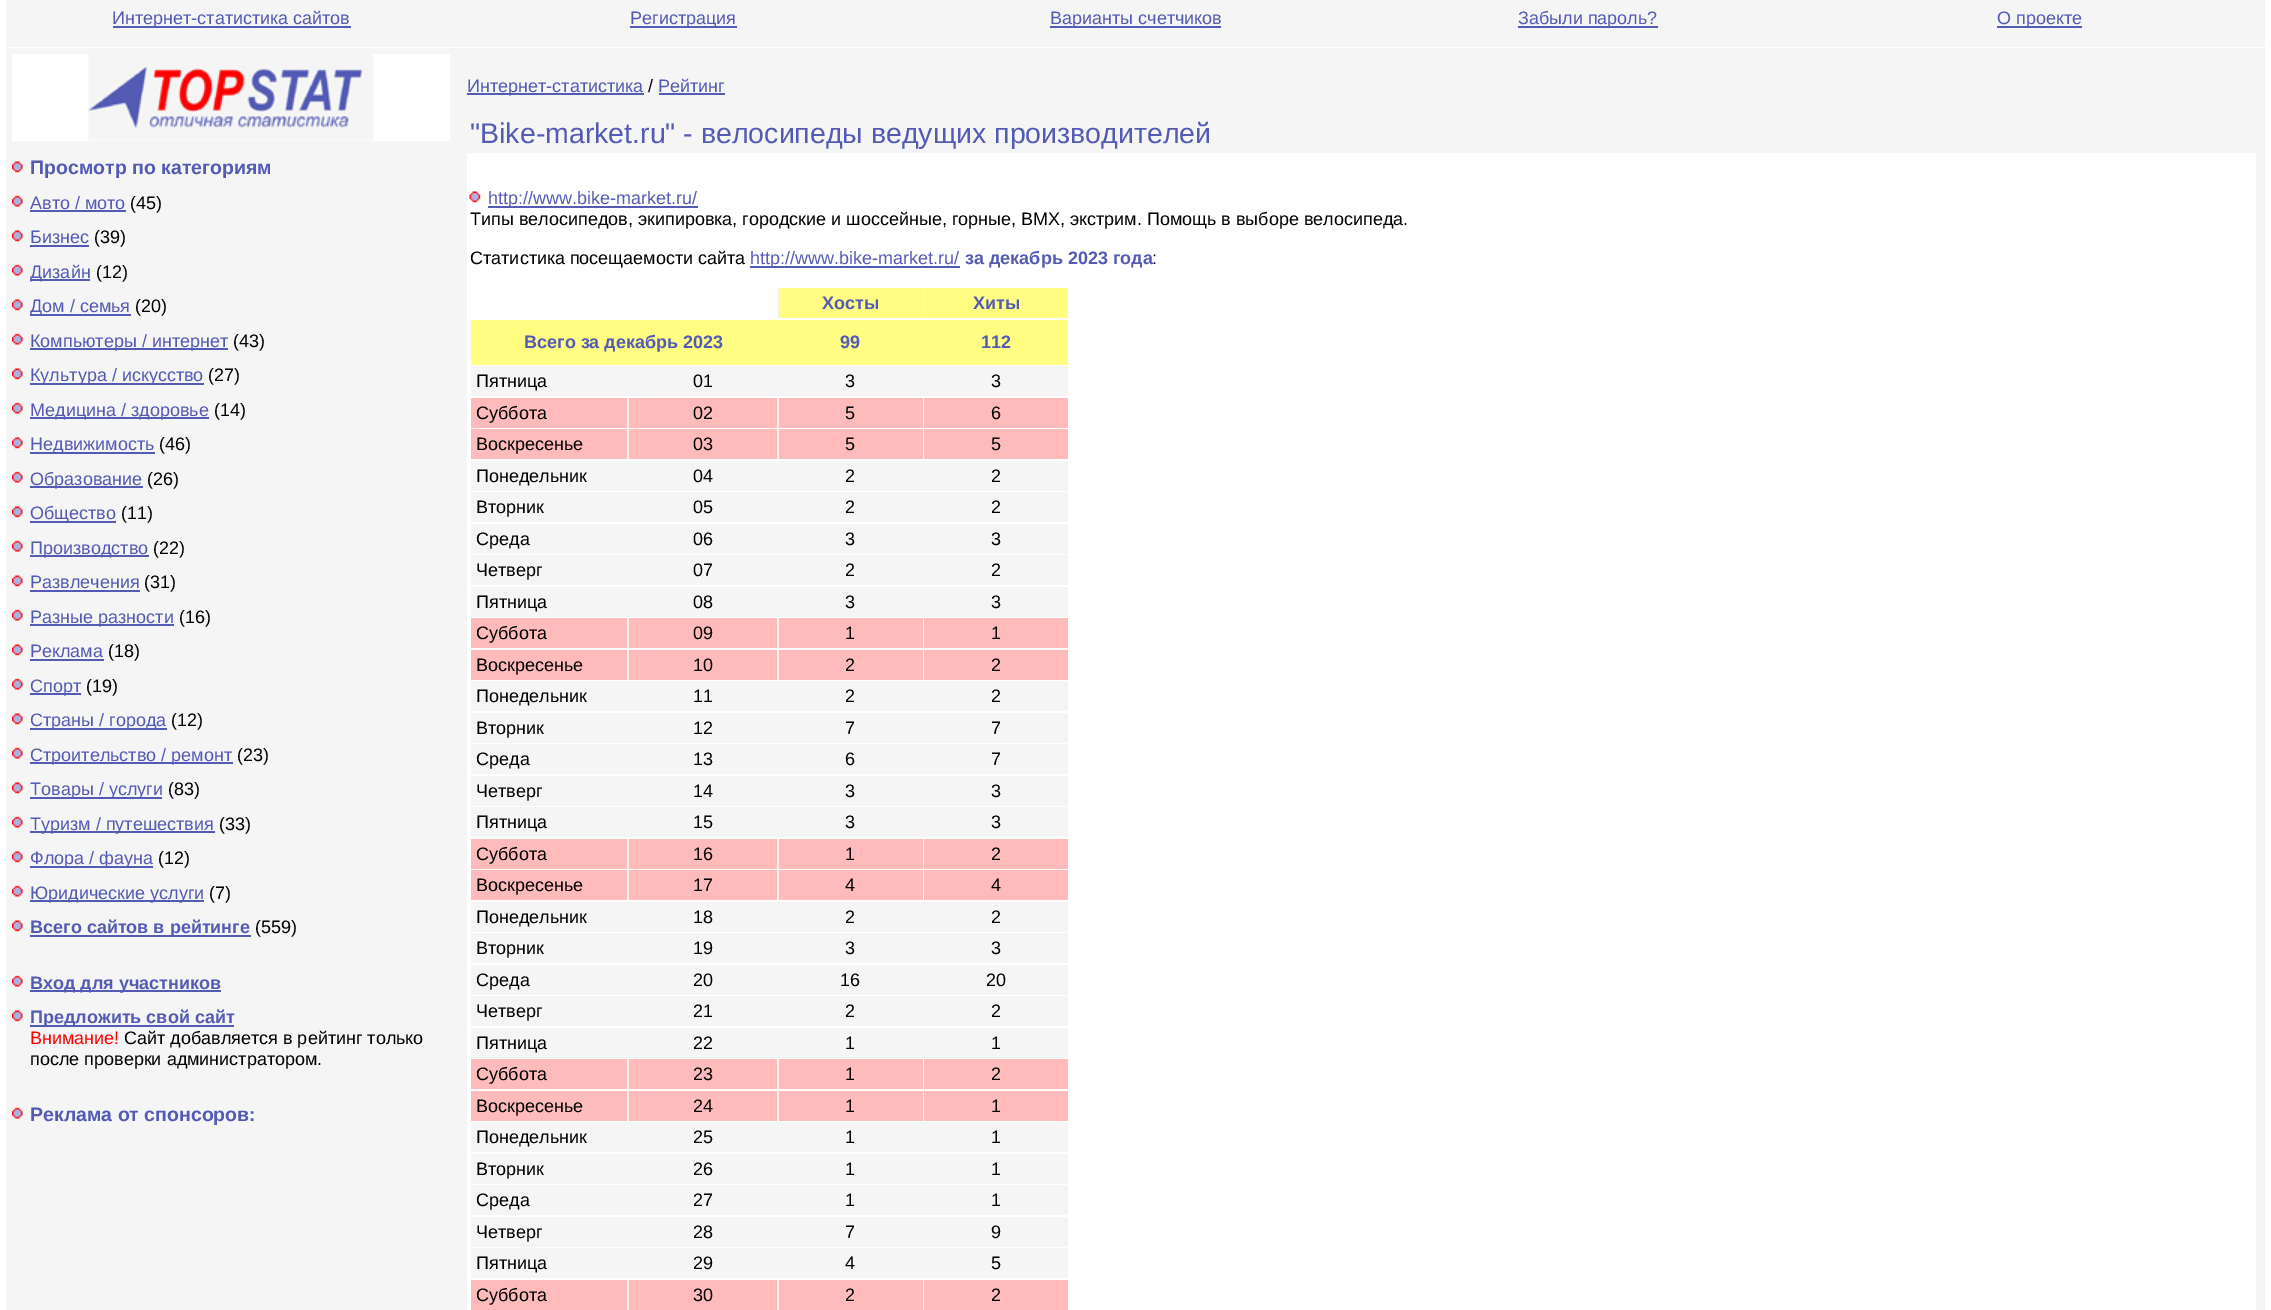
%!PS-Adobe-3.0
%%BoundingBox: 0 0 2271 1310
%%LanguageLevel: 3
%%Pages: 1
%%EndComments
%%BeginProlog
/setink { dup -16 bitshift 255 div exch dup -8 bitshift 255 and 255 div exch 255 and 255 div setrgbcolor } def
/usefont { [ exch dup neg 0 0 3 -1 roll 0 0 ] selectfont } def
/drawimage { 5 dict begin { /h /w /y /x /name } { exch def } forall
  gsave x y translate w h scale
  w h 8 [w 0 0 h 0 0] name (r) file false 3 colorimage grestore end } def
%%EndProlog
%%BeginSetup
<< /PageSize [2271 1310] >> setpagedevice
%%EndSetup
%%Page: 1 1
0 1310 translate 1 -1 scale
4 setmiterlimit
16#FFFFFF setink
0 0 2271 1310 rectfill
16#F5F5F5 setink
6 0 2259 47 rectfill
16#535BB5 setink
113 26 238 2 rectfill
/LiberationSans-Regular 18 usefont
112 24 moveto (Интернет-статистика сайтов) show
630 26 107 2 rectfill
630 24 moveto (Регистрация) show
1050 26 171 2 rectfill
1050 24 moveto (Варианты счетчиков) show
1518 26 140 2 rectfill
1518 24 moveto (Забыли пароль?) show
1997 26 85 2 rectfill
1997 24 moveto (О проекте) show
16#F5F5F5 setink
6 48 2259 1262 rectfill
16#FFFFFF setink
12 54 438 87 rectfill
(img1.raw) 88 54 286 87 drawimage
(img2.raw) 12 161 11 12 drawimage
/LiberationSans-Bold 19.5 usefont
16#535BB5 setink
30 174 moveto (Просмотр по категориям) show
(img3.raw) 12 195 11 12 drawimage
/LiberationSans-Regular 18 usefont
30 209 moveto (Авто / мото) show
30 210 96 2 rectfill
16#000000 setink
130 209 moveto (\(45\)) show
(img2.raw) 12 230 11 12 drawimage
16#535BB5 setink
30 243 moveto (Бизнес) show
30 245 59 2 rectfill
16#000000 setink
94 243 moveto (\(39\)) show
(img3.raw) 12 264 11 12 drawimage
16#535BB5 setink
30 279 60 2 rectfill
30 278 moveto (Дизайн) show
16#000000 setink
96 278 moveto (\(12\)) show
(img2.raw) 12 299 11 12 drawimage
16#535BB5 setink
30 314 101 2 rectfill
30 312 moveto (Дом / семья) show
16#000000 setink
135 312 moveto (\(20\)) show
(img3.raw) 12 333 11 12 drawimage
16#535BB5 setink
30 348 198 2 rectfill
30 347 moveto (Компьютеры / интернет) show
16#000000 setink
233 347 moveto (\(43\)) show
(img2.raw) 12 368 11 12 drawimage
16#535BB5 setink
30 383 174 2 rectfill
30 381 moveto (Культура / искусство) show
16#000000 setink
208 381 moveto (\(27\)) show
(img3.raw) 12 402 11 12 drawimage
16#535BB5 setink
30 417 179 2 rectfill
30 416 moveto (Медицина / здоровье) show
16#000000 setink
214 416 moveto (\(14\)) show
(img2.raw) 12 437 11 12 drawimage
16#535BB5 setink
30 452 125 2 rectfill
30 450 moveto (Недвижимость) show
16#000000 setink
159 450 moveto (\(46\)) show
(img3.raw) 12 471 11 12 drawimage
16#535BB5 setink
30 486 113 2 rectfill
30 485 moveto (Образование) show
16#000000 setink
147 485 moveto (\(26\)) show
(img2.raw) 12 506 11 12 drawimage
16#535BB5 setink
30 521 86 2 rectfill
30 519 moveto (Общество) show
16#000000 setink
121 519 moveto (\(11\)) show
(img3.raw) 12 540 11 12 drawimage
16#535BB5 setink
30 555 119 2 rectfill
30 554 moveto (Производство) show
16#000000 setink
153 554 moveto (\(22\)) show
(img2.raw) 12 575 11 12 drawimage
16#535BB5 setink
30 588 moveto (Развлечения) show
30 590 110 2 rectfill
16#000000 setink
144 588 moveto (\(31\)) show
(img3.raw) 12 609 11 12 drawimage
16#535BB5 setink
30 624 144 2 rectfill
30 623 moveto (Разные разности) show
16#000000 setink
179 623 moveto (\(16\)) show
(img2.raw) 12 644 11 12 drawimage
16#535BB5 setink
30 657 moveto (Реклама) show
30 659 74 2 rectfill
16#000000 setink
108 657 moveto (\(18\)) show
(img3.raw) 12 678 11 12 drawimage
16#535BB5 setink
30 693 51 2 rectfill
30 692 moveto (Спорт) show
16#000000 setink
86 692 moveto (\(19\)) show
(img2.raw) 12 713 11 12 drawimage
16#535BB5 setink
30 728 137 2 rectfill
30 726 moveto (Страны / города) show
16#000000 setink
171 726 moveto (\(12\)) show
(img3.raw) 12 747 11 12 drawimage
16#535BB5 setink
30 762 203 2 rectfill
30 761 moveto (Строительство / ремонт) show
16#000000 setink
237 761 moveto (\(23\)) show
(img2.raw) 12 782 11 12 drawimage
16#535BB5 setink
30 797 132 2 rectfill
30 795 moveto (Товары / услуги) show
16#000000 setink
168 795 moveto (\(83\)) show
(img3.raw) 12 816 11 12 drawimage
16#535BB5 setink
30 831 185 2 rectfill
30 830 moveto (Туризм / путешествия) show
16#000000 setink
219 830 moveto (\(33\)) show
(img2.raw) 12 851 11 12 drawimage
16#535BB5 setink
30 866 123 2 rectfill
30 864 moveto (Флора / фауна) show
16#000000 setink
158 864 moveto (\(12\)) show
(img3.raw) 12 885 11 12 drawimage
16#535BB5 setink
30 900 174 2 rectfill
30 899 moveto (Юридические услуги) show
16#000000 setink
209 899 moveto (\(7\)) show
(img2.raw) 12 920 11 12 drawimage
16#535BB5 setink
30 935 221 2 rectfill
/LiberationSans-Bold 18 usefont
30 933 moveto (Всего сайтов в рейтинге) show
/LiberationSans-Regular 18 usefont
16#000000 setink
255 933 moveto (\(559\)) show
(img3.raw) 12 975 11 12 drawimage
16#535BB5 setink
30 990 191 2 rectfill
/LiberationSans-Bold 18 usefont
30 989 moveto (Вход для участников) show
(img2.raw) 12 1010 11 12 drawimage
30 1025 204 2 rectfill
30 1023 moveto (Предложить свой сайт) show
/LiberationSans-Regular 18 usefont
16#FF0000 setink
30 1044 moveto (Внимание!) show
16#000000 setink
124 1044 moveto (Сайт добавляется в рейтинг только) show
30 1065 moveto (после проверки администратором.) show
(img3.raw) 12 1107 11 12 drawimage
/LiberationSans-Bold 19.5 usefont
16#535BB5 setink
30 1121 moveto (Реклама от спонсоров:) show
467 93 177 2 rectfill
/LiberationSans-Regular 18 usefont
467 92 moveto (Интернет-статистика) show
16#000000 setink
648 92 moveto (/) show
16#535BB5 setink
658 92 moveto (Рейтинг) show
659 93 66 2 rectfill
/LiberationSans-Regular 28.5 usefont
470 143 moveto ("Bike-market.ru" - велосипеды ведущих производителей) show
16#FFFFFF setink
467 153 1789 1157 rectfill
(img4.raw) 469 191 12 12 drawimage
16#535BB5 setink
488 206 210 2 rectfill
/LiberationSans-Regular 18 usefont
488 204 moveto (http://www.bike-market.ru/) show
16#000000 setink
470 225 moveto (Типы велосипедов, экипировка, городские и шоссейные, горные, BMX, экстрим. Помощь в выборе велосипеда.) show
470 264 moveto (Статистика посещаемости сайта) show
16#535BB5 setink
750 266 210 2 rectfill
750 264 moveto (http://www.bike-market.ru/) show
/LiberationSans-Bold 18 usefont
965 264 moveto (за декабрь 2023 года) show
/LiberationSans-Regular 18 usefont
16#000000 setink
1152 264 moveto (:) show
16#F5F5F5 setink
777 288 147 30 rectfill
16#FFFD82 setink
779 288 144 30 rectfill
/LiberationSans-Bold 18 usefont
16#535BB5 setink
822 309 moveto (Хосты) show
16#FFFD82 setink
924 288 144 30 rectfill
16#535BB5 setink
973 309 moveto (Хиты) show
16#FFFD82 setink
471 320 597 45 rectfill
16#535BB5 setink
[
    [(Всего за декабрь 2023) 524 348]
    [(99) 840 348]
    [(112) 981 348]
] { aload pop moveto show } forall
16#F5F5F5 setink
471 366 597 30 rectfill
/LiberationSans-Regular 18 usefont
16#000000 setink
[
    [(Пятница) 476 387]
    [(01) 693 387]
    [(3) 845 387]
    [(3) 991 387]
] { aload pop moveto show } forall
16#F5F5F5 setink
627 398 297 30 rectfill
16#FFBBBB setink
471 398 156 30 rectfill
16#000000 setink
476 419 moveto (Суббота) show
16#FFBBBB setink
629 398 148 30 rectfill
16#000000 setink
693 419 moveto (02) show
16#FFBBBB setink
779 398 144 30 rectfill
16#000000 setink
845 419 moveto (5) show
16#FFBBBB setink
924 398 144 30 rectfill
16#000000 setink
991 419 moveto (6) show
16#F5F5F5 setink
627 429 297 30 rectfill
16#FFBBBB setink
471 429 156 30 rectfill
16#000000 setink
476 450 moveto (Воскресенье) show
16#FFBBBB setink
629 429 148 30 rectfill
16#000000 setink
693 450 moveto (03) show
16#FFBBBB setink
779 429 144 30 rectfill
16#000000 setink
845 450 moveto (5) show
16#FFBBBB setink
924 429 144 30 rectfill
16#000000 setink
991 450 moveto (5) show
16#F5F5F5 setink
471 461 597 30 rectfill
16#000000 setink
[
    [(Понедельник) 476 482]
    [(04) 693 482]
    [(2) 845 482]
    [(2) 991 482]
] { aload pop moveto show } forall
16#F5F5F5 setink
471 492 597 30 rectfill
16#000000 setink
[
    [(Вторник) 476 513]
    [(05) 693 513]
    [(2) 845 513]
    [(2) 991 513]
] { aload pop moveto show } forall
16#F5F5F5 setink
471 524 597 30 rectfill
16#000000 setink
[
    [(Среда) 476 545]
    [(06) 693 545]
    [(3) 845 545]
    [(3) 991 545]
] { aload pop moveto show } forall
16#F5F5F5 setink
471 555 597 30 rectfill
16#000000 setink
[
    [(Четверг) 476 576]
    [(07) 693 576]
    [(2) 845 576]
    [(2) 991 576]
] { aload pop moveto show } forall
16#F5F5F5 setink
471 587 597 30 rectfill
16#000000 setink
[
    [(Пятница) 476 608]
    [(08) 693 608]
    [(3) 845 608]
    [(3) 991 608]
] { aload pop moveto show } forall
16#F5F5F5 setink
627 618 297 30 rectfill
16#FFBBBB setink
471 618 156 30 rectfill
16#000000 setink
476 639 moveto (Суббота) show
16#FFBBBB setink
629 618 148 30 rectfill
16#000000 setink
693 639 moveto (09) show
16#FFBBBB setink
779 618 144 30 rectfill
16#000000 setink
845 639 moveto (1) show
16#FFBBBB setink
924 618 144 30 rectfill
16#000000 setink
991 639 moveto (1) show
16#F5F5F5 setink
627 650 297 30 rectfill
16#FFBBBB setink
471 650 156 30 rectfill
16#000000 setink
476 671 moveto (Воскресенье) show
16#FFBBBB setink
629 650 148 30 rectfill
16#000000 setink
693 671 moveto (10) show
16#FFBBBB setink
779 650 144 30 rectfill
16#000000 setink
845 671 moveto (2) show
16#FFBBBB setink
924 650 144 30 rectfill
16#000000 setink
991 671 moveto (2) show
16#F5F5F5 setink
471 681 597 30 rectfill
16#000000 setink
[
    [(Понедельник) 476 702]
    [(11) 693 702]
    [(2) 845 702]
    [(2) 991 702]
] { aload pop moveto show } forall
16#F5F5F5 setink
471 713 597 30 rectfill
16#000000 setink
[
    [(Вторник) 476 734]
    [(12) 693 734]
    [(7) 845 734]
    [(7) 991 734]
] { aload pop moveto show } forall
16#F5F5F5 setink
471 744 597 30 rectfill
16#000000 setink
[
    [(Среда) 476 765]
    [(13) 693 765]
    [(6) 845 765]
    [(7) 991 765]
] { aload pop moveto show } forall
16#F5F5F5 setink
471 776 597 30 rectfill
16#000000 setink
[
    [(Четверг) 476 797]
    [(14) 693 797]
    [(3) 845 797]
    [(3) 991 797]
] { aload pop moveto show } forall
16#F5F5F5 setink
471 807 597 30 rectfill
16#000000 setink
[
    [(Пятница) 476 828]
    [(15) 693 828]
    [(3) 845 828]
    [(3) 991 828]
] { aload pop moveto show } forall
16#F5F5F5 setink
627 839 297 30 rectfill
16#FFBBBB setink
471 839 156 30 rectfill
16#000000 setink
476 860 moveto (Суббота) show
16#FFBBBB setink
629 839 148 30 rectfill
16#000000 setink
693 860 moveto (16) show
16#FFBBBB setink
779 839 144 30 rectfill
16#000000 setink
845 860 moveto (1) show
16#FFBBBB setink
924 839 144 30 rectfill
16#000000 setink
991 860 moveto (2) show
16#F5F5F5 setink
627 870 297 30 rectfill
16#FFBBBB setink
471 870 156 30 rectfill
16#000000 setink
476 891 moveto (Воскресенье) show
16#FFBBBB setink
629 870 148 30 rectfill
16#000000 setink
693 891 moveto (17) show
16#FFBBBB setink
779 870 144 30 rectfill
16#000000 setink
845 891 moveto (4) show
16#FFBBBB setink
924 870 144 30 rectfill
16#000000 setink
991 891 moveto (4) show
16#F5F5F5 setink
471 902 597 30 rectfill
16#000000 setink
[
    [(Понедельник) 476 923]
    [(18) 693 923]
    [(2) 845 923]
    [(2) 991 923]
] { aload pop moveto show } forall
16#F5F5F5 setink
471 933 597 30 rectfill
16#000000 setink
[
    [(Вторник) 476 954]
    [(19) 693 954]
    [(3) 845 954]
    [(3) 991 954]
] { aload pop moveto show } forall
16#F5F5F5 setink
471 965 597 30 rectfill
16#000000 setink
[
    [(Среда) 476 986]
    [(20) 693 986]
    [(16) 840 986]
    [(20) 986 986]
] { aload pop moveto show } forall
16#F5F5F5 setink
471 996 597 30 rectfill
16#000000 setink
[
    [(Четверг) 476 1017]
    [(21) 693 1017]
    [(2) 845 1017]
    [(2) 991 1017]
] { aload pop moveto show } forall
16#F5F5F5 setink
471 1028 597 30 rectfill
16#000000 setink
[
    [(Пятница) 476 1049]
    [(22) 693 1049]
    [(1) 845 1049]
    [(1) 991 1049]
] { aload pop moveto show } forall
16#F5F5F5 setink
627 1059 297 30 rectfill
16#FFBBBB setink
471 1059 156 30 rectfill
16#000000 setink
476 1080 moveto (Суббота) show
16#FFBBBB setink
629 1059 148 30 rectfill
16#000000 setink
693 1080 moveto (23) show
16#FFBBBB setink
779 1059 144 30 rectfill
16#000000 setink
845 1080 moveto (1) show
16#FFBBBB setink
924 1059 144 30 rectfill
16#000000 setink
991 1080 moveto (2) show
16#F5F5F5 setink
627 1091 297 30 rectfill
16#FFBBBB setink
471 1091 156 30 rectfill
16#000000 setink
476 1112 moveto (Воскресенье) show
16#FFBBBB setink
629 1091 148 30 rectfill
16#000000 setink
693 1112 moveto (24) show
16#FFBBBB setink
779 1091 144 30 rectfill
16#000000 setink
845 1112 moveto (1) show
16#FFBBBB setink
924 1091 144 30 rectfill
16#000000 setink
991 1112 moveto (1) show
16#F5F5F5 setink
471 1122 597 30 rectfill
16#000000 setink
[
    [(Понедельник) 476 1143]
    [(25) 693 1143]
    [(1) 845 1143]
    [(1) 991 1143]
] { aload pop moveto show } forall
16#F5F5F5 setink
471 1154 597 30 rectfill
16#000000 setink
[
    [(Вторник) 476 1175]
    [(26) 693 1175]
    [(1) 845 1175]
    [(1) 991 1175]
] { aload pop moveto show } forall
16#F5F5F5 setink
471 1185 597 30 rectfill
16#000000 setink
[
    [(Среда) 476 1206]
    [(27) 693 1206]
    [(1) 845 1206]
    [(1) 991 1206]
] { aload pop moveto show } forall
16#F5F5F5 setink
471 1217 597 30 rectfill
16#000000 setink
[
    [(Четверг) 476 1238]
    [(28) 693 1238]
    [(7) 845 1238]
    [(9) 991 1238]
] { aload pop moveto show } forall
16#F5F5F5 setink
471 1248 597 30 rectfill
16#000000 setink
[
    [(Пятница) 476 1269]
    [(29) 693 1269]
    [(4) 845 1269]
    [(5) 991 1269]
] { aload pop moveto show } forall
16#F5F5F5 setink
627 1280 297 30 rectfill
16#FFBBBB setink
471 1280 156 30 rectfill
16#000000 setink
476 1301 moveto (Суббота) show
16#FFBBBB setink
629 1280 148 30 rectfill
16#000000 setink
693 1301 moveto (30) show
16#FFBBBB setink
779 1280 144 30 rectfill
16#000000 setink
845 1301 moveto (2) show
16#FFBBBB setink
924 1280 144 30 rectfill
16#000000 setink
991 1301 moveto (2) show
showpage
%%EOF
